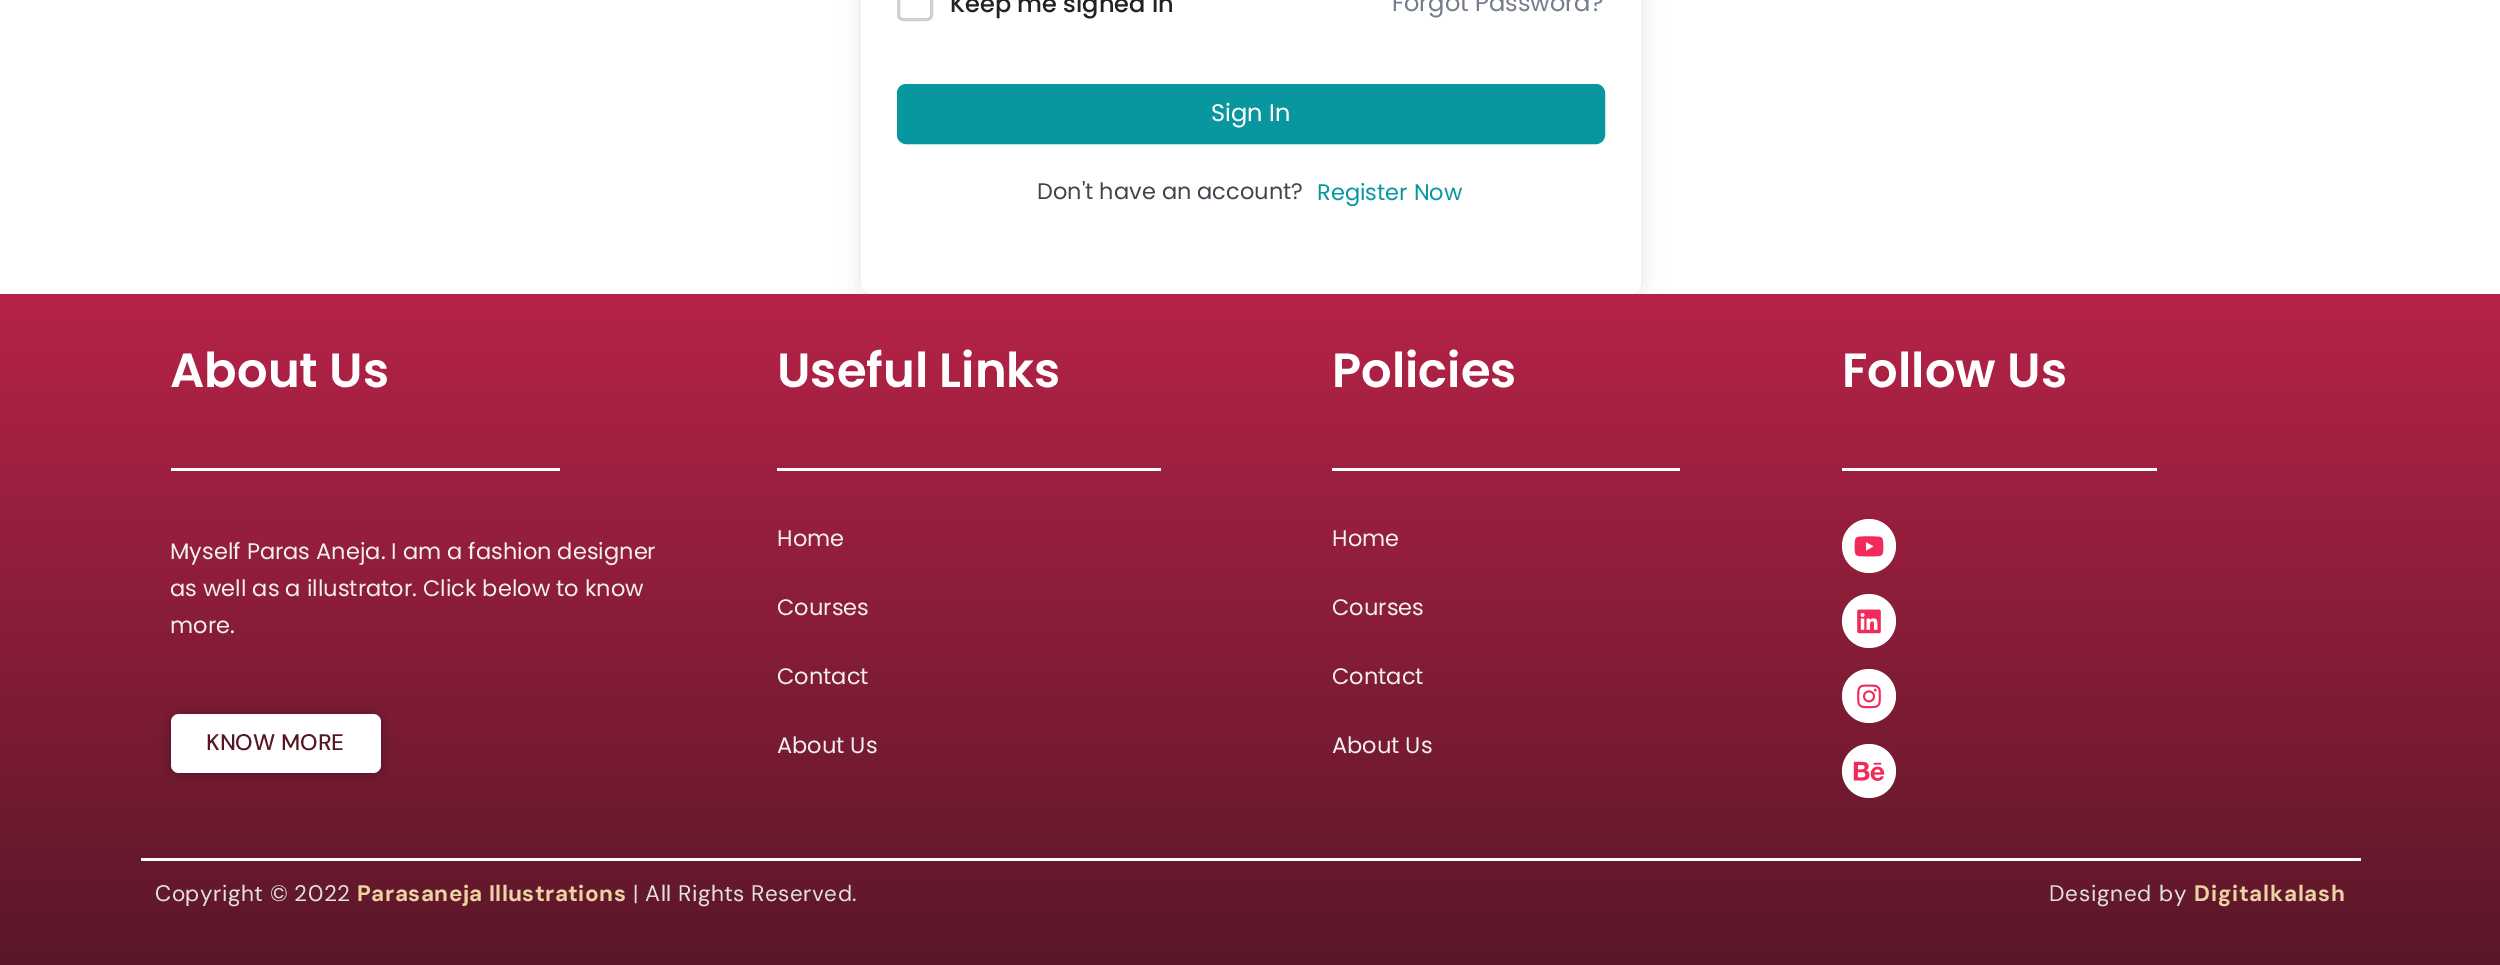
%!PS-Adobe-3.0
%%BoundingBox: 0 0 2500 965
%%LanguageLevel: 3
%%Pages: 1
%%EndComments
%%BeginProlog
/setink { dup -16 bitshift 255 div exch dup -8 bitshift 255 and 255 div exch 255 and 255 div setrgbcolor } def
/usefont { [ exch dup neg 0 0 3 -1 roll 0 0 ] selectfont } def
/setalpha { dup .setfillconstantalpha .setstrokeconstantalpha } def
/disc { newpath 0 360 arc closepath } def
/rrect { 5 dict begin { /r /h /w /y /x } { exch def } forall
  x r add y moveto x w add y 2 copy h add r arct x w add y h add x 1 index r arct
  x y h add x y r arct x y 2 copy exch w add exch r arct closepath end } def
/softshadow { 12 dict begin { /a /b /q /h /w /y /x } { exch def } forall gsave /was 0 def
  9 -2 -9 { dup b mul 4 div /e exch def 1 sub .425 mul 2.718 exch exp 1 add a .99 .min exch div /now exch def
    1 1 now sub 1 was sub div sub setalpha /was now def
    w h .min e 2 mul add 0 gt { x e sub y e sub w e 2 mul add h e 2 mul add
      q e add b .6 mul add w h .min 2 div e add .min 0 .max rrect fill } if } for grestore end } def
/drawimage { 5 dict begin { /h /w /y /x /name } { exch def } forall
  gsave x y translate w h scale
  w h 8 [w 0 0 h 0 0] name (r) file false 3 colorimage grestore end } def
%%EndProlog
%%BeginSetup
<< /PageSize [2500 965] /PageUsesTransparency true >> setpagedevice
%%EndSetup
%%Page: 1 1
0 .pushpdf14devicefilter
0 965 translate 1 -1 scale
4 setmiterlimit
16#FFFFFF setink
0 0 2500 965 rectfill
gsave
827 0 moveto 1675 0 lineto 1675 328 lineto 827 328 lineto closepath 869 -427 moveto 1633 -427 lineto 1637.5 -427 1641 -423.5 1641 -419 curveto 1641 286 lineto 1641 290.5 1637.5 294 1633 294 curveto 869 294 lineto 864.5 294 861 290.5 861 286 curveto 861 -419 lineto 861 -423.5 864.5 -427 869 -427 curveto closepath eoclip newpath
16#000000 setink
861 -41 780 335 8 11 0.1 softshadow
grestore
16#CDCFD5 setink
3 setlinewidth
898.5 -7.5 33 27 4.5 rrect stroke
/Poppins-Medium 24 usefont
16#212327 setink
950 12 moveto (Keep me signed in) show
/Poppins-Regular 24 usefont
16#757C8E setink
1392 11 moveto (Forgot Password?) show
16#08979F setink
898 85 706 58 8 rrect gsave fill grestore
2 setlinewidth
stroke
16#FFFFFF setink
1211 121 moveto (Sign In) show
/Poppins-Regular 22.5 usefont
16#41454F setink
1037 199 moveto (Don't have an account?) show
16#08979F setink
1317 200 moveto (Register Now) show
gsave 0 294 moveto 2500 294 lineto 2500 965 lineto 0 965 lineto closepath clip newpath
<< /ShadingType 2 /ColorSpace /DeviceRGB /Coords [1250 294 1250 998] /Extend [true true] /Function << /FunctionType 2 /Domain [0 1] /C0 [0.714 0.137 0.282] /C1 [0.337 0.086 0.149] /N 1 >> >> shfill grestore
/Poppins-SemiBold 48 usefont
16#FFFFFF setink
170 387 moveto (About Us) show
171 468 389 3 rectfill
/Poppins-Regular 22.5 usefont
16#F2EFEF setink
[
    [(Myself Paras Aneja. I am a fashion designer) 170 559]
    [(as well as a illustrator. Click below to know) 170 596]
    [(more.) 170 633]
] { aload pop moveto show } forall
16#000000 setink
171 714 210 59 8 7.5 0.29 softshadow
16#FFFFFF setink
171 714 210 59 8 rrect fill
/DMSans-Medium 22.5 usefont
16#561626 setink
206 750 moveto (KNOW MORE) show
/Poppins-SemiBold 48 usefont
16#FFFFFF setink
777 387 moveto (Useful Links) show
777 468 384 3 rectfill
/Poppins-Regular 22.5 usefont
16#F2EFEF setink
[
    [(Home) 777 546]
    [(Courses) 777 615]
    [(Contact) 777 684]
    [(About Us) 777 753]
] { aload pop moveto show } forall
/Poppins-SemiBold 48 usefont
16#FFFFFF setink
1332 387 moveto (Policies) show
1332 468 348 3 rectfill
/Poppins-Regular 22.5 usefont
16#F2EFEF setink
[
    [(Home) 1332 546]
    [(Courses) 1332 615]
    [(Contact) 1332 684]
    [(About Us) 1332 753]
] { aload pop moveto show } forall
/Poppins-SemiBold 48 usefont
16#FFFFFF setink
1842 387 moveto (Follow Us) show
1842 468 315 3 rectfill
1869 546 27 disc fill
(img1.raw) 1854 536 30 21 drawimage
1869 621 27 disc fill
(img2.raw) 1857 609 24 25 drawimage
1869 696 27 disc fill
(img3.raw) 1857 684 24 25 drawimage
1869 771 27 disc fill
(img4.raw) 1853 761 32 20 drawimage
141 858 2220 3 rectfill
/DMSans-Regular 22.5 usefont
16#E1E1E1 setink
155 901 moveto 0.45 0 (Copyright © 2022) ashow
/DMSans-Bold 22.5 usefont
16#EDD2A4 setink
357 901 moveto 0.45 0 (Parasaneja Illustrations) ashow
/DMSans-Regular 22.5 usefont
16#E1E1E1 setink
633 901 moveto 0.45 0 (| All Rights Reserved.) ashow
2049 901 moveto 0.75 0 (Designed by) ashow
/DMSans-Bold 22.5 usefont
16#EDD2A4 setink
2194 901 moveto 0.75 0 (Digitalkalash) ashow
.poppdf14devicefilter showpage
%%EOF
